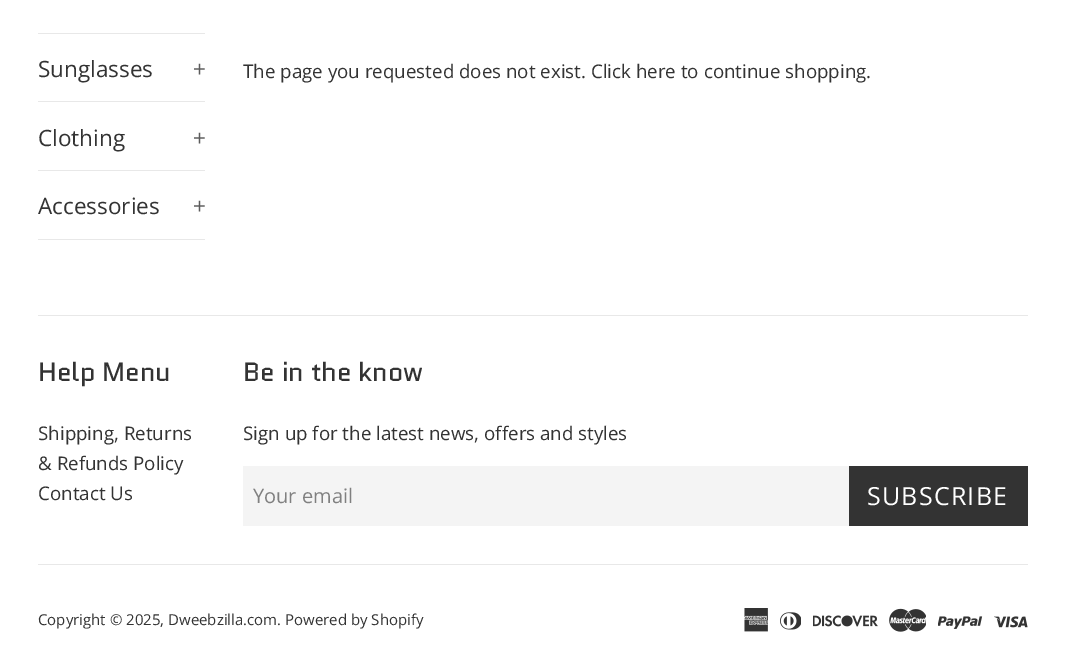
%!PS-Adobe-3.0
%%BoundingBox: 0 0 1065 651
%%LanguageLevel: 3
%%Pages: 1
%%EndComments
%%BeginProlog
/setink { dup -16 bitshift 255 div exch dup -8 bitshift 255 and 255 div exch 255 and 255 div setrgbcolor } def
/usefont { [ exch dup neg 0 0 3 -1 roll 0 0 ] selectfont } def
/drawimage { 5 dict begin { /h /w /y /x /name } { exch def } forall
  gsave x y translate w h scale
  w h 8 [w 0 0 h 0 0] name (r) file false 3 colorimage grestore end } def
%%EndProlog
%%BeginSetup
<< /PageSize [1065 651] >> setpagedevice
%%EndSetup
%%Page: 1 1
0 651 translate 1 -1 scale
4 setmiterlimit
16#FFFFFF setink
0 0 1065 651 rectfill
16#E8E8E8 setink
38 33 167 1 rectfill
38 101 167 1 rectfill
/OpenSans-Regular 22.5 usefont
16#333333 setink
38 77 moveto (Sunglasses) show
16#5C5C5C setink
193 77 moveto (+) show
16#E8E8E8 setink
38 170 167 1 rectfill
16#333333 setink
38 146 moveto (Clothing) show
16#5C5C5C setink
193 146 moveto (+) show
16#E8E8E8 setink
38 239 167 1 rectfill
16#333333 setink
38 214 moveto (Accessories) show
16#5C5C5C setink
193 214 moveto (+) show
/OpenSans-Regular 18.75 usefont
16#333333 setink
243 78 moveto (The page you requested does not exist. Click here to continue shopping.) show
16#E8E8E8 setink
38 315 990 1 rectfill
/Quantico-Regular 26.25 usefont
16#333333 setink
38 381 moveto (Help Menu) show
/OpenSans-Regular 18.75 usefont
[
    [(Shipping, Returns) 38 440]
    [(& Refunds Policy) 38 470]
    [(Contact Us) 38 500]
] { aload pop moveto show } forall
/Quantico-Regular 26.25 usefont
243 381 moveto (Be in the know) show
/OpenSans-Regular 18.75 usefont
243 440 moveto (Sign up for the latest news, offers and styles) show
16#F4F4F4 setink
243 466 606 60 rectfill
/OpenSans-Regular 20 usefont
16#808080 setink
253 503 moveto (Your email) show
16#333333 setink
849 466 179 60 rectfill
/OpenSans-Regular 25 usefont
16#FFFFFF setink
867 505 moveto 1.25 0 (SUBSCRIBE) ashow
16#E8E8E8 setink
38 564 990 1 rectfill
/OpenSans-Regular 15 usefont
16#333333 setink
38 625 moveto (Copyright © 2025, Dweebzilla.com. Powered by Shopify) show
(img1.raw) 744 608 24 24 drawimage
(img2.raw) 780 612 21 18 drawimage
(img3.raw) 813 615 65 12 drawimage
(img4.raw) 889 608 37 24 drawimage
(img5.raw) 938 616 45 13 drawimage
(img6.raw) 994 616 34 12 drawimage
showpage
%%EOF
